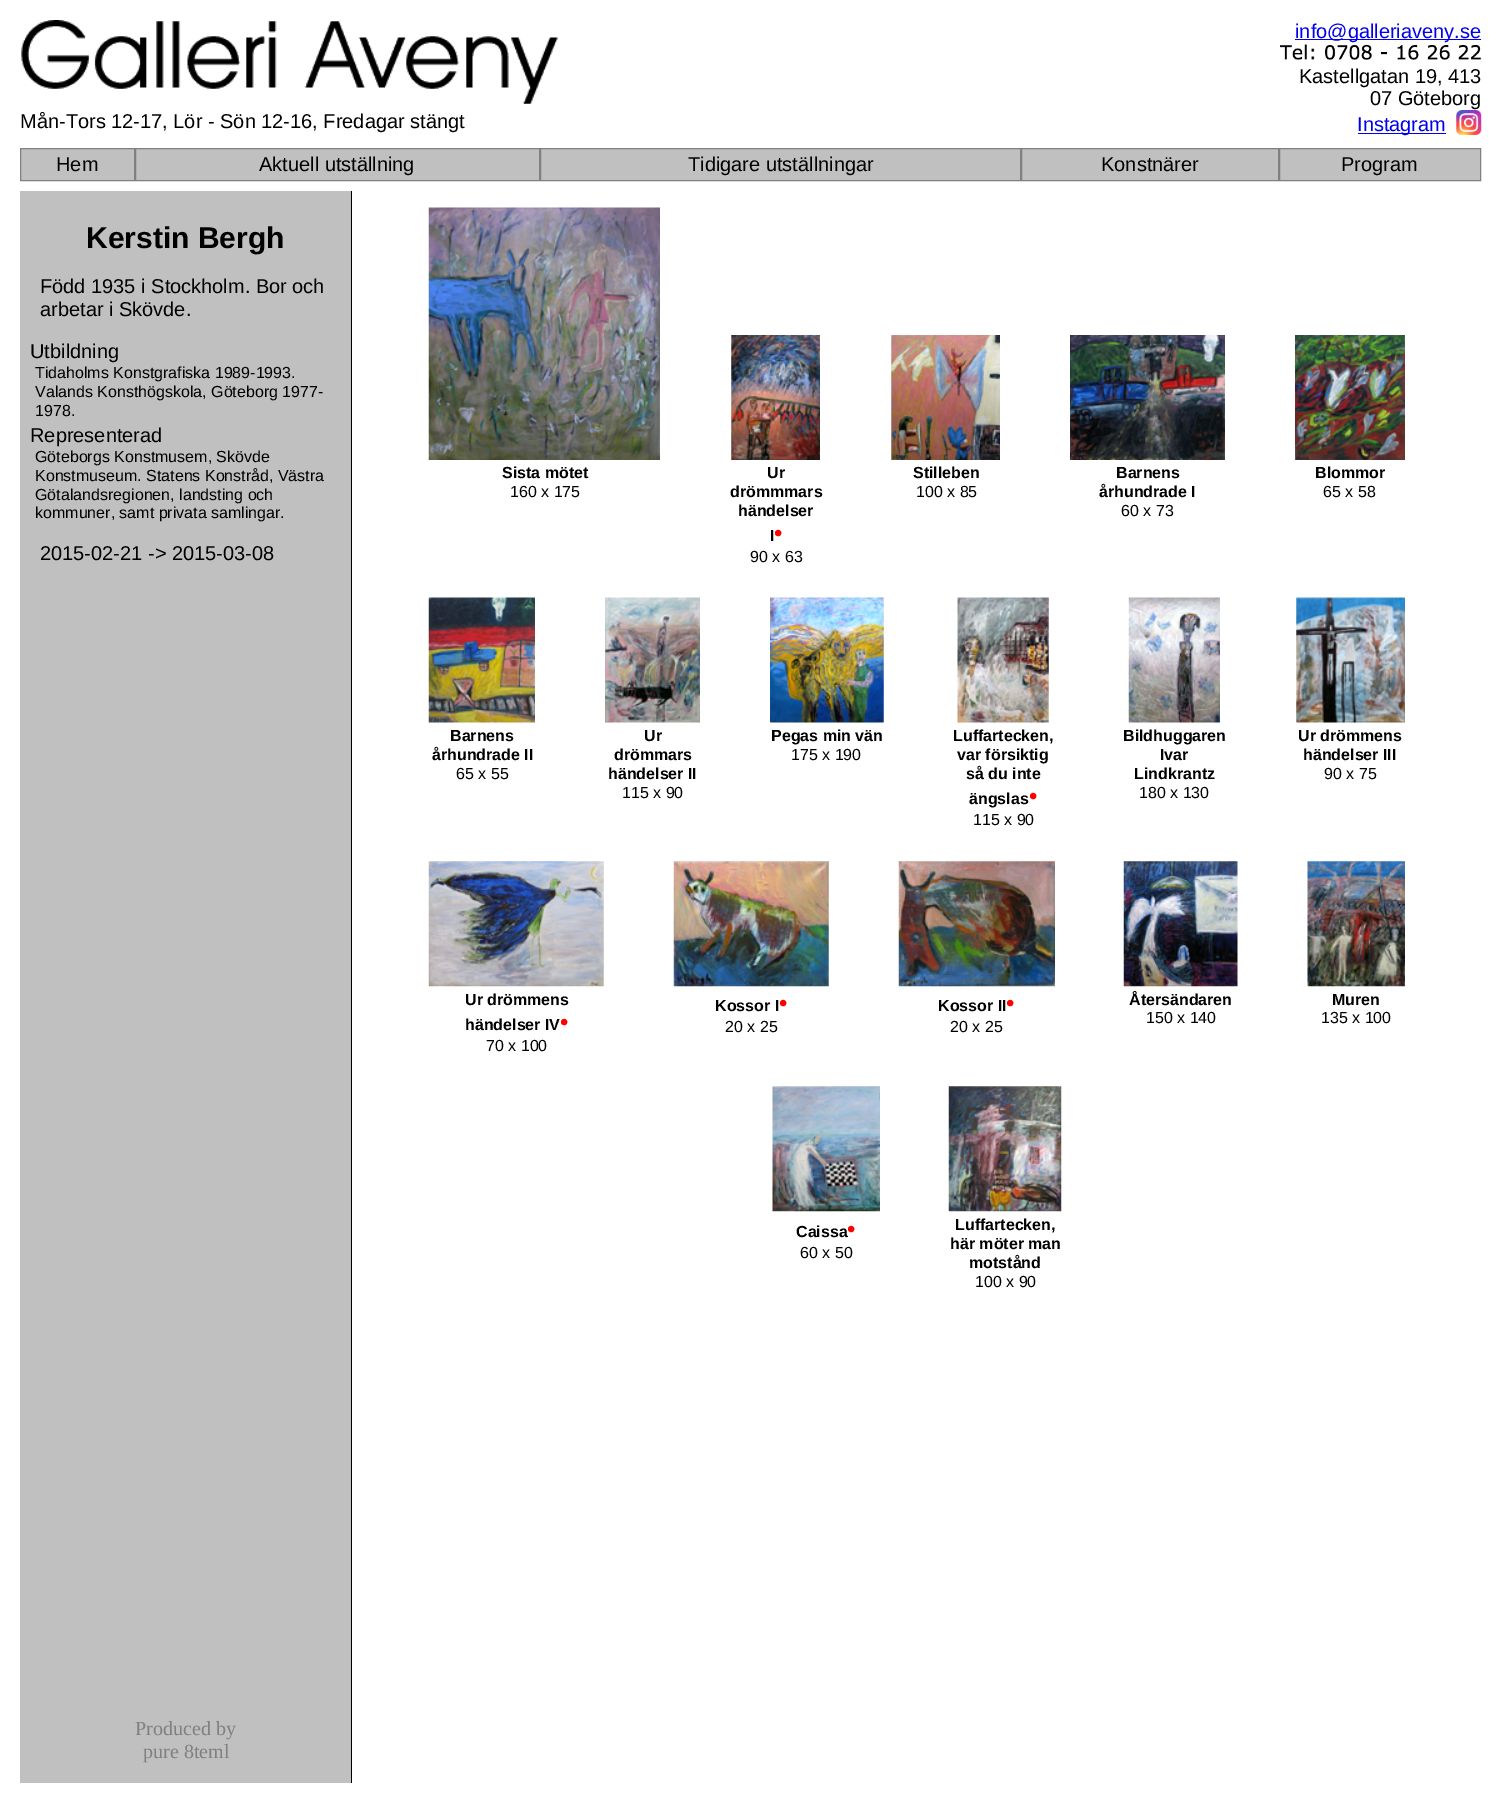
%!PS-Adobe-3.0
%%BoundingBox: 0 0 1501 1802
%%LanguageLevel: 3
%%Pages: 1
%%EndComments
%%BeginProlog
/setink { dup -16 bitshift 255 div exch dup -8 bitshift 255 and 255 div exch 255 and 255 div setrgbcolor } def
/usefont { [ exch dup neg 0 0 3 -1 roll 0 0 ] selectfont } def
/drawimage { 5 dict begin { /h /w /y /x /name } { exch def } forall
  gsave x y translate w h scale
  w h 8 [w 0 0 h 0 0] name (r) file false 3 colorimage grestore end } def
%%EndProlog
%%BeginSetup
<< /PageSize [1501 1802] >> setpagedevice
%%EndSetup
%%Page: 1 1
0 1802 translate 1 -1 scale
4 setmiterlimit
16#FFFFFF setink
0 0 1501 1802 rectfill
(img1.raw) 21 20 537 84 drawimage
/LiberationSans-Regular 20 usefont
16#000000 setink
20 128 moveto (Mån-Tors 12-17, Lör - Sön 12-16, Fredagar stängt) show
16#0000EE setink
1295 39 186 1 rectfill
1295 38 moveto (info@galleriaveny.se) show
(img2.raw) 1280 44 202 16 drawimage
16#000000 setink
1299 83 moveto (Kastellgatan 19, 413) show
1370 105 moveto (07 Göteborg) show
16#0000EE setink
1358 133 88 1 rectfill
1357 131 moveto (Instagram) show
(img3.raw) 1456 110 26 25 drawimage
16#C0C0C0 setink
21 149 1459 31 rectfill
16#808080 setink
20.5 148.5 114 32 rectstroke
16#000000 setink
56 171 moveto (Hem) show
16#808080 setink
135.5 148.5 404 32 rectstroke
16#000000 setink
259 171 moveto (Aktuell utställning) show
16#808080 setink
540.5 148.5 480 32 rectstroke
16#000000 setink
688 171 moveto (Tidigare utställningar) show
16#808080 setink
1021.5 148.5 257 32 rectstroke
16#000000 setink
1101 171 moveto (Konstnärer) show
16#808080 setink
1279.5 148.5 201 32 rectstroke
16#000000 setink
1341 171 moveto (Program) show
16#C0C0C0 setink
20 191 331 1592 rectfill
/LiberationSans-Bold 30 usefont
16#000000 setink
86 248 moveto (Kerstin Bergh) show
/LiberationSans-Regular 20 usefont
[
    [(Född 1935 i Stockholm. Bor och) 40 293]
    [(arbetar i Skövde.) 40 316]
    [(Utbildning) 30 358]
] { aload pop moveto show } forall
/LiberationSans-Regular 16 usefont
[
    [(Tidaholms Konstgrafiska 1989-1993.) 35 378]
    [(Valands Konsthögskola, Göteborg 1977-) 35 397]
    [(1978.) 35 416]
] { aload pop moveto show } forall
/LiberationSans-Regular 20 usefont
30 442 moveto (Representerad) show
/LiberationSans-Regular 16 usefont
[
    [(Göteborgs Konstmusem, Skövde) 35 462]
    [(Konstmuseum. Statens Konstråd, Västra) 35 481]
    [(Götalandsregionen, landsting och) 35 500]
    [(kommuner, samt privata samlingar.) 35 518]
] { aload pop moveto show } forall
/LiberationSans-Regular 20 usefont
40 560 moveto (2015-02-21 -> 2015-03-08) show
/LiberationSerif-Regular 20 usefont
16#808080 setink
135 1735 moveto (Produced by) show
143 1758 moveto (pure 8teml) show
16#000000 setink
351 191 1 1592 rectfill
(img4.raw) 428 207 232 253 drawimage
/LiberationSans-Bold 16 usefont
502 478 moveto (Sista mötet) show
/LiberationSans-Regular 16 usefont
510 497 moveto (160 x 175) show
(img5.raw) 731 335 89 125 drawimage
/LiberationSans-Bold 16 usefont
[
    [(Ur) 767 478]
    [(drömmmars) 730 497]
    [(händelser) 738 516]
    [(I) 770 541]
] { aload pop moveto show } forall
/LiberationSans-Regular 24 usefont
16#FF0000 setink
774 541 moveto (•) show
/LiberationSans-Regular 16 usefont
16#000000 setink
750 562 moveto (90 x 63) show
(img6.raw) 891 335 109 125 drawimage
/LiberationSans-Bold 16 usefont
913 478 moveto (Stilleben) show
/LiberationSans-Regular 16 usefont
916 497 moveto (100 x 85) show
(img7.raw) 1070 335 155 125 drawimage
/LiberationSans-Bold 16 usefont
1116 478 moveto (Barnens) show
1099 497 moveto (århundrade I) show
/LiberationSans-Regular 16 usefont
1121 516 moveto (60 x 73) show
(img8.raw) 1295 335 110 125 drawimage
/LiberationSans-Bold 16 usefont
1315 478 moveto (Blommor) show
/LiberationSans-Regular 16 usefont
1323 497 moveto (65 x 58) show
(img9.raw) 428 597 107 126 drawimage
/LiberationSans-Bold 16 usefont
450 741 moveto (Barnens) show
432 760 moveto (århundrade II) show
/LiberationSans-Regular 16 usefont
456 779 moveto (65 x 55) show
(img10.raw) 605 597 95 126 drawimage
/LiberationSans-Bold 16 usefont
[
    [(Ur) 644 741]
    [(drömmars) 614 760]
    [(händelser II) 608 779]
] { aload pop moveto show } forall
/LiberationSans-Regular 16 usefont
622 798 moveto (115 x 90) show
(img11.raw) 770 597 114 126 drawimage
/LiberationSans-Bold 16 usefont
771 741 moveto (Pegas min vän) show
/LiberationSans-Regular 16 usefont
791 760 moveto (175 x 190) show
(img12.raw) 957 597 92 126 drawimage
/LiberationSans-Bold 16 usefont
[
    [(Luffartecken,) 953 741]
    [(var försiktig) 957 760]
    [(så du inte) 966 779]
    [(ängslas) 969 804]
] { aload pop moveto show } forall
/LiberationSans-Regular 24 usefont
16#FF0000 setink
1029 804 moveto (•) show
/LiberationSans-Regular 16 usefont
16#000000 setink
973 825 moveto (115 x 90) show
(img13.raw) 1128 597 92 126 drawimage
/LiberationSans-Bold 16 usefont
[
    [(Bildhuggaren) 1123 741]
    [(Ivar) 1160 760]
    [(Lindkrantz) 1134 779]
] { aload pop moveto show } forall
/LiberationSans-Regular 16 usefont
1139 798 moveto (180 x 130) show
(img14.raw) 1296 597 109 126 drawimage
/LiberationSans-Bold 16 usefont
1298 741 moveto (Ur drömmens) show
1303 760 moveto (händelser III) show
/LiberationSans-Regular 16 usefont
1324 779 moveto (90 x 75) show
(img15.raw) 428 861 176 126 drawimage
/LiberationSans-Bold 16 usefont
465 1005 moveto (Ur drömmens) show
465 1030 moveto (händelser IV) show
/LiberationSans-Regular 24 usefont
16#FF0000 setink
560 1030 moveto (•) show
/LiberationSans-Regular 16 usefont
16#000000 setink
486 1051 moveto (70 x 100) show
(img16.raw) 673 861 156 126 drawimage
/LiberationSans-Bold 16 usefont
715 1011 moveto (Kossor I) show
/LiberationSans-Regular 24 usefont
16#FF0000 setink
779 1011 moveto (•) show
/LiberationSans-Regular 16 usefont
16#000000 setink
725 1032 moveto (20 x 25) show
(img17.raw) 898 861 157 126 drawimage
/LiberationSans-Bold 16 usefont
938 1011 moveto (Kossor II) show
/LiberationSans-Regular 24 usefont
16#FF0000 setink
1006 1011 moveto (•) show
/LiberationSans-Regular 16 usefont
16#000000 setink
950 1032 moveto (20 x 25) show
(img18.raw) 1123 861 115 126 drawimage
/LiberationSans-Bold 16 usefont
1129 1005 moveto (Återsändaren) show
/LiberationSans-Regular 16 usefont
1146 1023 moveto (150 x 140) show
(img19.raw) 1307 861 98 126 drawimage
/LiberationSans-Bold 16 usefont
1332 1005 moveto (Muren) show
/LiberationSans-Regular 16 usefont
1321 1023 moveto (135 x 100) show
(img20.raw) 772 1086 108 126 drawimage
/LiberationSans-Bold 16 usefont
796 1237 moveto (Caissa) show
/LiberationSans-Regular 24 usefont
16#FF0000 setink
847 1237 moveto (•) show
/LiberationSans-Regular 16 usefont
16#000000 setink
800 1258 moveto (60 x 50) show
(img21.raw) 948 1086 114 126 drawimage
/LiberationSans-Bold 16 usefont
[
    [(Luffartecken,) 955 1230]
    [(här möter man) 950 1249]
    [(motstånd) 969 1268]
] { aload pop moveto show } forall
/LiberationSans-Regular 16 usefont
975 1287 moveto (100 x 90) show
showpage
%%EOF
